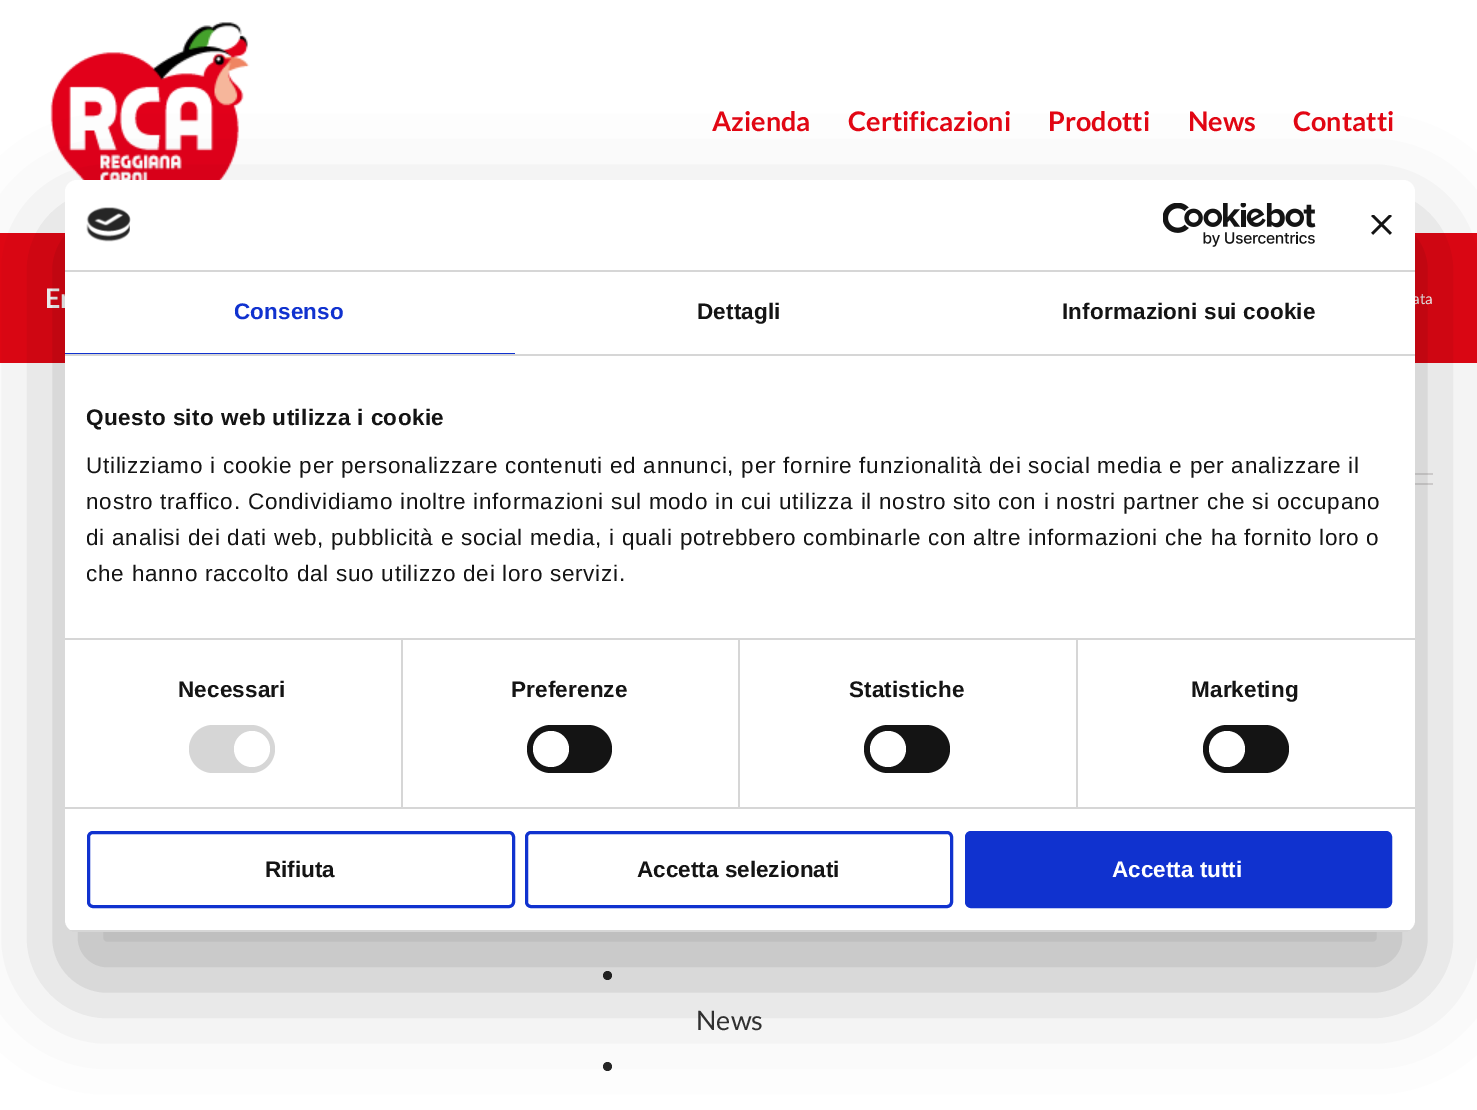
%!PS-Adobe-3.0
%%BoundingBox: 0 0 1477 1110
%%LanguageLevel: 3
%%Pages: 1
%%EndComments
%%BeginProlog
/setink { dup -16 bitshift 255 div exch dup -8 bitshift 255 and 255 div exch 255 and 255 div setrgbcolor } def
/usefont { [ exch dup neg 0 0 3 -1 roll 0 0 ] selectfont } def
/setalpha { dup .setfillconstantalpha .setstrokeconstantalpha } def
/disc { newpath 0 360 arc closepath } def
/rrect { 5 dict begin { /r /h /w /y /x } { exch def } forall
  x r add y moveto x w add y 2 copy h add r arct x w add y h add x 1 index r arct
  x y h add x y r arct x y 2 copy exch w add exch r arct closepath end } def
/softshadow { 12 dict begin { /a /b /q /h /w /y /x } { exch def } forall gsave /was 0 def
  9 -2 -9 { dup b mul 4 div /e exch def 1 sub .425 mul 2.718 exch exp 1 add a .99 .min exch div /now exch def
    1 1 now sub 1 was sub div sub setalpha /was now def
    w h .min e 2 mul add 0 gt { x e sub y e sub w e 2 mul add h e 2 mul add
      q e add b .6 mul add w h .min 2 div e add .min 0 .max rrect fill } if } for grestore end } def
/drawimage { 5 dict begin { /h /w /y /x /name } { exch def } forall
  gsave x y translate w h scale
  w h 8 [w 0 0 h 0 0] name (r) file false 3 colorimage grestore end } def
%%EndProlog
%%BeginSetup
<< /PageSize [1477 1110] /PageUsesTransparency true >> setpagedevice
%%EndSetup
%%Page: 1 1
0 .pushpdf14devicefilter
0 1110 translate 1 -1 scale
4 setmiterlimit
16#FFFFFF setink
0 0 1477 1110 rectfill
(img1.raw) 50 22 200 159 drawimage
/Lato-Bold 27 usefont
16#E30613 setink
[
    [(Azienda) 712 131]
    [(Certificazioni) 848 131]
    [(Prodotti) 1048 131]
    [(News) 1188 131]
    [(Contatti) 1293 131]
] { aload pop moveto show } forall
0 233 1477 130 rectfill
16#FFFFFF setink
45 308 moveto (Er) show
/Lato-Regular 15 usefont
1412 304 moveto (ata) show
16#E0DEDE setink
1415 473 18 2 rectfill
1415 483 18 2 rectfill
16#262626 setink
607.5 975.5 4.5 disc fill
/Lato-Regular 27 usefont
16#333333 setink
696 1030 moveto (News) show
16#262626 setink
607.5 1066.5 4.5 disc fill
16#000000 setink
65 228 1350 752 12 51 0.3 softshadow
16#FFFFFF setink
65 180 1350 752 12 rrect fill
16#D6D6D6 setink
65 270 1350 2 rectfill
(img2.raw) 86 207 45 35 drawimage
(img3.raw) 1163 203 153 44 drawimage
(img4.raw) 1371 215 21 20 drawimage
65 354 1350 2 rectfill
16#1032CF setink
65 353 450 1 rectfill
/LiberationSans-Bold 22.5 usefont
234 319 moveto 0.15 0 (Consenso) ashow
16#141414 setink
697 319 moveto 0.15 0 (Dettagli) ashow
1062 319 moveto 0.15 0 (Informazioni sui cookie) ashow
[
    [401 639 2 168 16#D6D6D6]
    [738 639 2 168 16#D6D6D6]
    [1076 639 2 168 16#D6D6D6]
    [65 638 1350 2 16#D6D6D6]
] { aload pop setink rectfill } forall
16#141414 setink
86 425 moveto 0.4 0 (Questo sito web utilizza i cookie) ashow
/LiberationSans-Regular 22.5 usefont
86 473 moveto 0.75 0 (Utilizziamo i cookie per personalizzare contenuti ed annunci, per fornire funzionalità dei social media e per analizzare il) ashow
86 509 moveto 0.75 0 (nostro traffico. Condividiamo inoltre informazioni sul modo in cui utilizza il nostro sito con i nostri partner che si occupano) ashow
86 545 moveto 0.75 0 (di analisi dei dati web, pubblicità e social media, i quali potrebbero combinarle con altre informazioni che ha fornito loro o) ashow
86 581 moveto 0.75 0 (che hanno raccolto dal suo utilizzo dei loro servizi.) ashow
16#D6D6D6 setink
65 807 1350 2 rectfill
/LiberationSans-Bold 22.5 usefont
16#141414 setink
178 697 moveto 0.15 0 (Necessari) ashow
16#D6D6D6 setink
189 725 86 48 24 rrect fill
16#FFFFFF setink
252 749 18 disc fill
16#141414 setink
511 697 moveto 0.15 0 (Preferenze) ashow
527 725 85 48 24 rrect fill
16#FFFFFF setink
551 749 18 disc fill
16#141414 setink
849 697 moveto 0.15 0 (Statistiche) ashow
864 725 86 48 24 rrect fill
16#FFFFFF setink
888 749 18 disc fill
16#141414 setink
1191 697 moveto 0.15 0 (Marketing) ashow
1203 725 86 48 24 rrect fill
16#FFFFFF setink
1227 749 18 disc fill
gsave
65 180 1350 752 12 rrect clip newpath
16#D6D6D6 setink
65 930 1350 2 rectfill
grestore
16#1032CF setink
3 setlinewidth
88.5 832.5 425 74 4.5 rrect stroke
16#141414 setink
265 877 moveto (Rifiuta) show
16#1032CF setink
526.5 832.5 425 74 4.5 rrect stroke
16#141414 setink
637 877 moveto (Accetta selezionati) show
16#1032CF setink
966.5 832.5 424 74 4.5 rrect gsave fill grestore
stroke
16#FFFFFF setink
1112 877 moveto (Accetta tutti) show
.poppdf14devicefilter showpage
%%EOF
